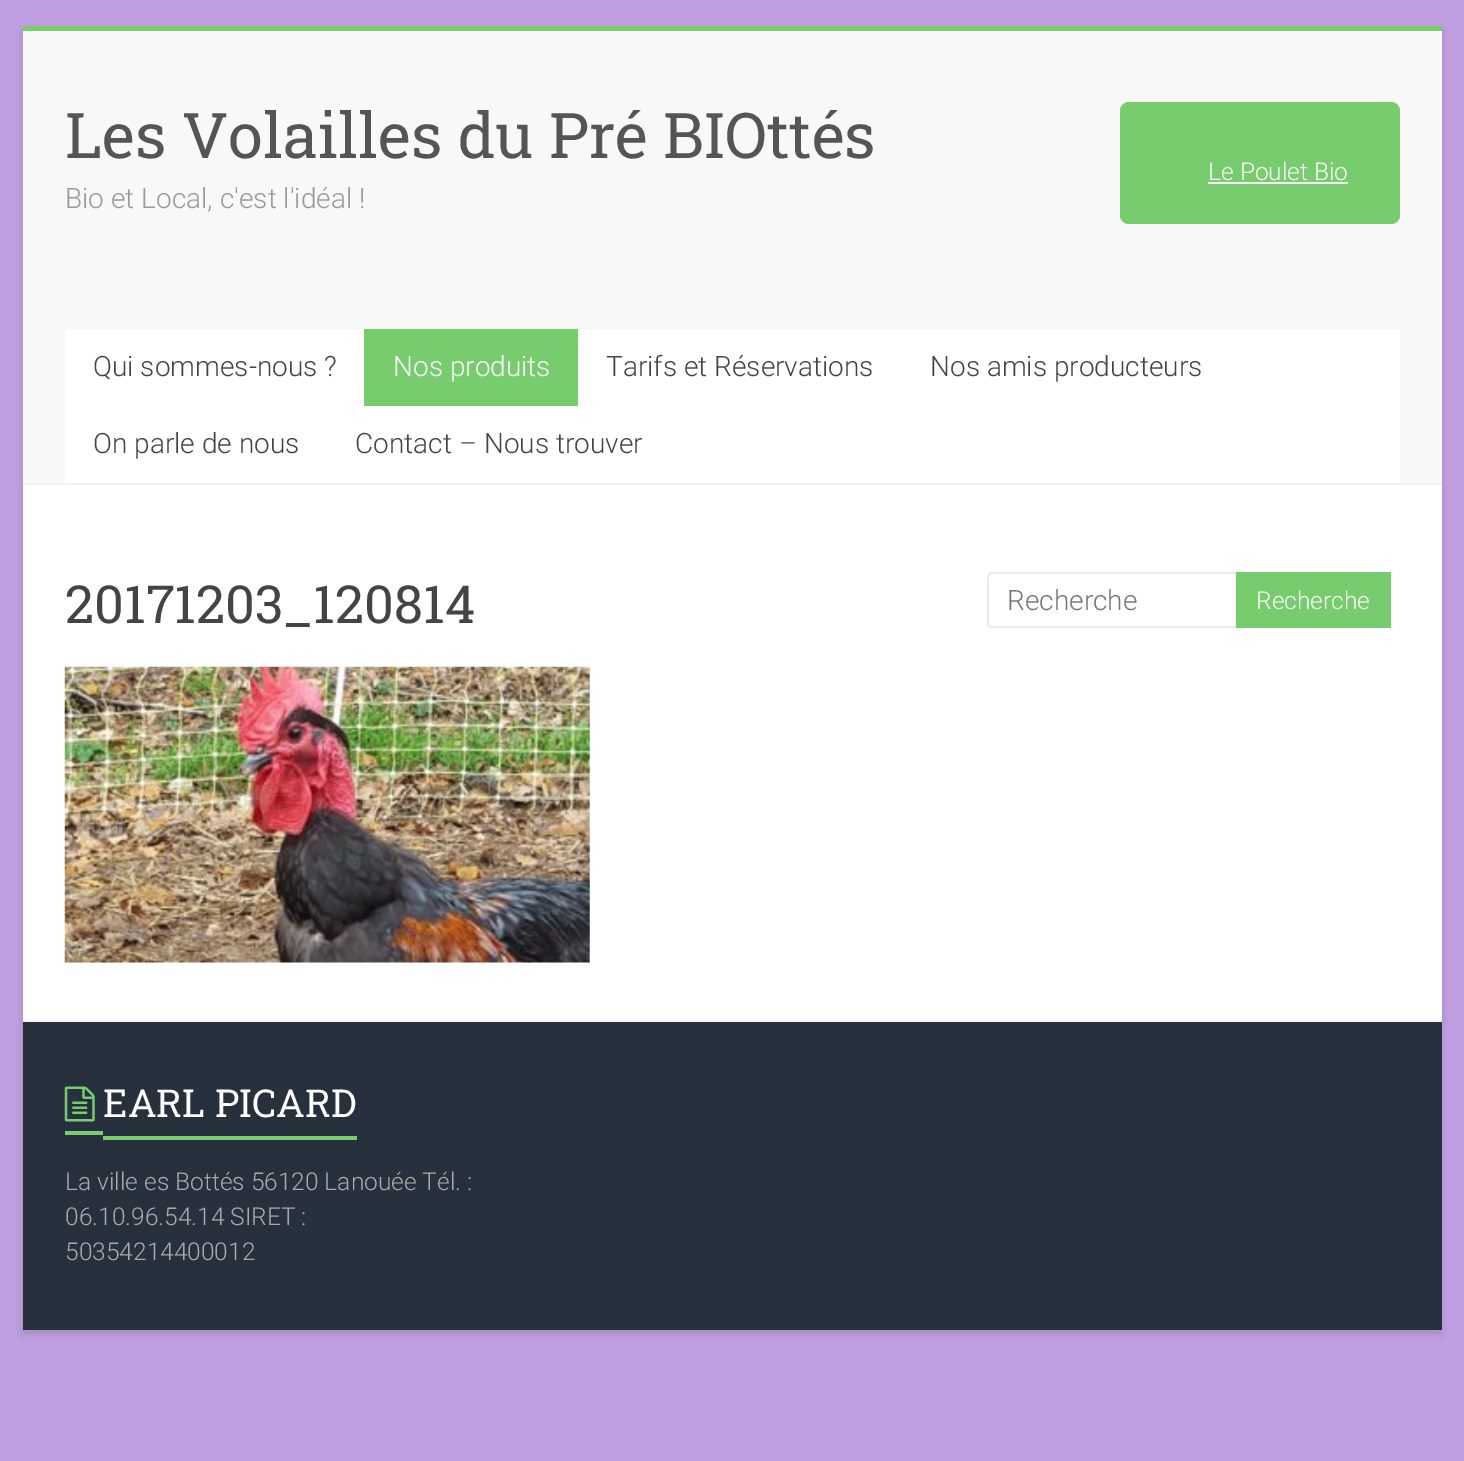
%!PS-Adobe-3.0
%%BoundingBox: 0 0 1464 1461
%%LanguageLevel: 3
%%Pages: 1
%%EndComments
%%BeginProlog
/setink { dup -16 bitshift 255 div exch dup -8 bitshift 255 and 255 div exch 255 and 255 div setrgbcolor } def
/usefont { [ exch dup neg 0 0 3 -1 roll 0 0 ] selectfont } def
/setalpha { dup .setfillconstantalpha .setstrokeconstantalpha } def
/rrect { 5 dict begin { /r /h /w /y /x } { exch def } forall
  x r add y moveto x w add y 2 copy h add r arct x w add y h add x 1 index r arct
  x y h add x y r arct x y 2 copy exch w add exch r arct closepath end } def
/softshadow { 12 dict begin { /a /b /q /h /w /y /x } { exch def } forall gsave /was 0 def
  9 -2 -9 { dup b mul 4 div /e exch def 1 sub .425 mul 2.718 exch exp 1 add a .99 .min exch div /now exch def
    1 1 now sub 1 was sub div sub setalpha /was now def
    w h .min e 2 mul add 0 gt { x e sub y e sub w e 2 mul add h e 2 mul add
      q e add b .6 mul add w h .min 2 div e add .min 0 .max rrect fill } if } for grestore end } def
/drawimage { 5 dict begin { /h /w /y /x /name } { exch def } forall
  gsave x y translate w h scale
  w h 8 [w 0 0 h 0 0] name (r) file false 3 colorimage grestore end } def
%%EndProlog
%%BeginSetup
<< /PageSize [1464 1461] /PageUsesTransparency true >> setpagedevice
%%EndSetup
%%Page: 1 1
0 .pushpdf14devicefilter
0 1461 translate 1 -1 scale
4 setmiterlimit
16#C09EE2 setink
0 0 1464 1461 rectfill
16#646464 setink
23 30 1419 1304 0 5 0.3 softshadow
[
    [23 31 1419 989 16#FFFFFF]
    [23 26 1419 5 16#77CC6D]
    [23 32 1419 451 16#F8F8F8]
    [23 483 1419 2 16#F2F2F2]
] { aload pop setink rectfill } forall
/RobotoSlab-Regular 63 usefont
16#555555 setink
65 158 moveto (Les Volailles du Pré BIOttés) show
/Roboto-Light 28 usefont
16#999999 setink
65 208 moveto (Bio et Local, c'est l'idéal !) show
16#77CC6D setink
1120 102 280 122 9 rrect fill
/Roboto-Light 24.5 usefont
16#FFFFFF setink
1208 180 moveto (Le Poulet Bio) show
1208 182 140 2 rectfill
65 329 1335 154 rectfill
/Roboto-Light 28 usefont
16#444444 setink
93 376 moveto (Qui sommes-nous ?) show
16#77CC6D setink
364 329 214 77 rectfill
16#FFFFFF setink
393 376 moveto (Nos produits) show
16#444444 setink
[
    [(Tarifs et Réservations) 606 376]
    [(Nos amis producteurs) 930 376]
    [(On parle de nous) 93 453]
    [(Contact – Nous trouver) 355 453]
] { aload pop moveto show } forall
/RobotoSlab-Regular 52.5 usefont
65 623 moveto (20171203_120814) show
(img1.raw) 64 666 526 297 drawimage
16#EAEAEA setink
992 572 moveto 1236 572 lineto 1236 628 lineto 992 628 lineto 989 628 987 626 987 623 curveto 987 578 lineto 987 575 989 572 992 572 curveto closepath 992 574 moveto 1236 574 lineto 1236 626 lineto 992 626 lineto 990 626 989 625 989 623 curveto 989 578 lineto 989 576 990 574 992 574 curveto closepath eofill
/Roboto-Light 28 usefont
16#757575 setink
1007 610 moveto (Recherche) show
16#77CC6D setink
1236 572 155 56 rectfill
/Roboto-Light 24.5 usefont
16#FFFFFF setink
1256 609 moveto (Recherche) show
16#27313D setink
23 1022 1419 308 rectfill
16#F2F2F2 setink
23 1020 1419 2 rectfill
(img2.raw) 64 1086 31 36 drawimage
/RobotoSlab-Regular 38.5 usefont
16#FFFFFF setink
103 1117 moveto (EARL PICARD) show
16#77CC6D setink
65 1131 38 4 rectfill
103 1136 254 4 rectfill
/Roboto-Light 24.5 usefont
16#AAAAAA setink
[
    [(La ville es Bottés 56120 Lanouée Tél. :) 65 1190]
    [(06.10.96.54.14 SIRET :) 65 1225]
    [(50354214400012) 65 1260]
] { aload pop moveto show } forall
.poppdf14devicefilter showpage
%%EOF
